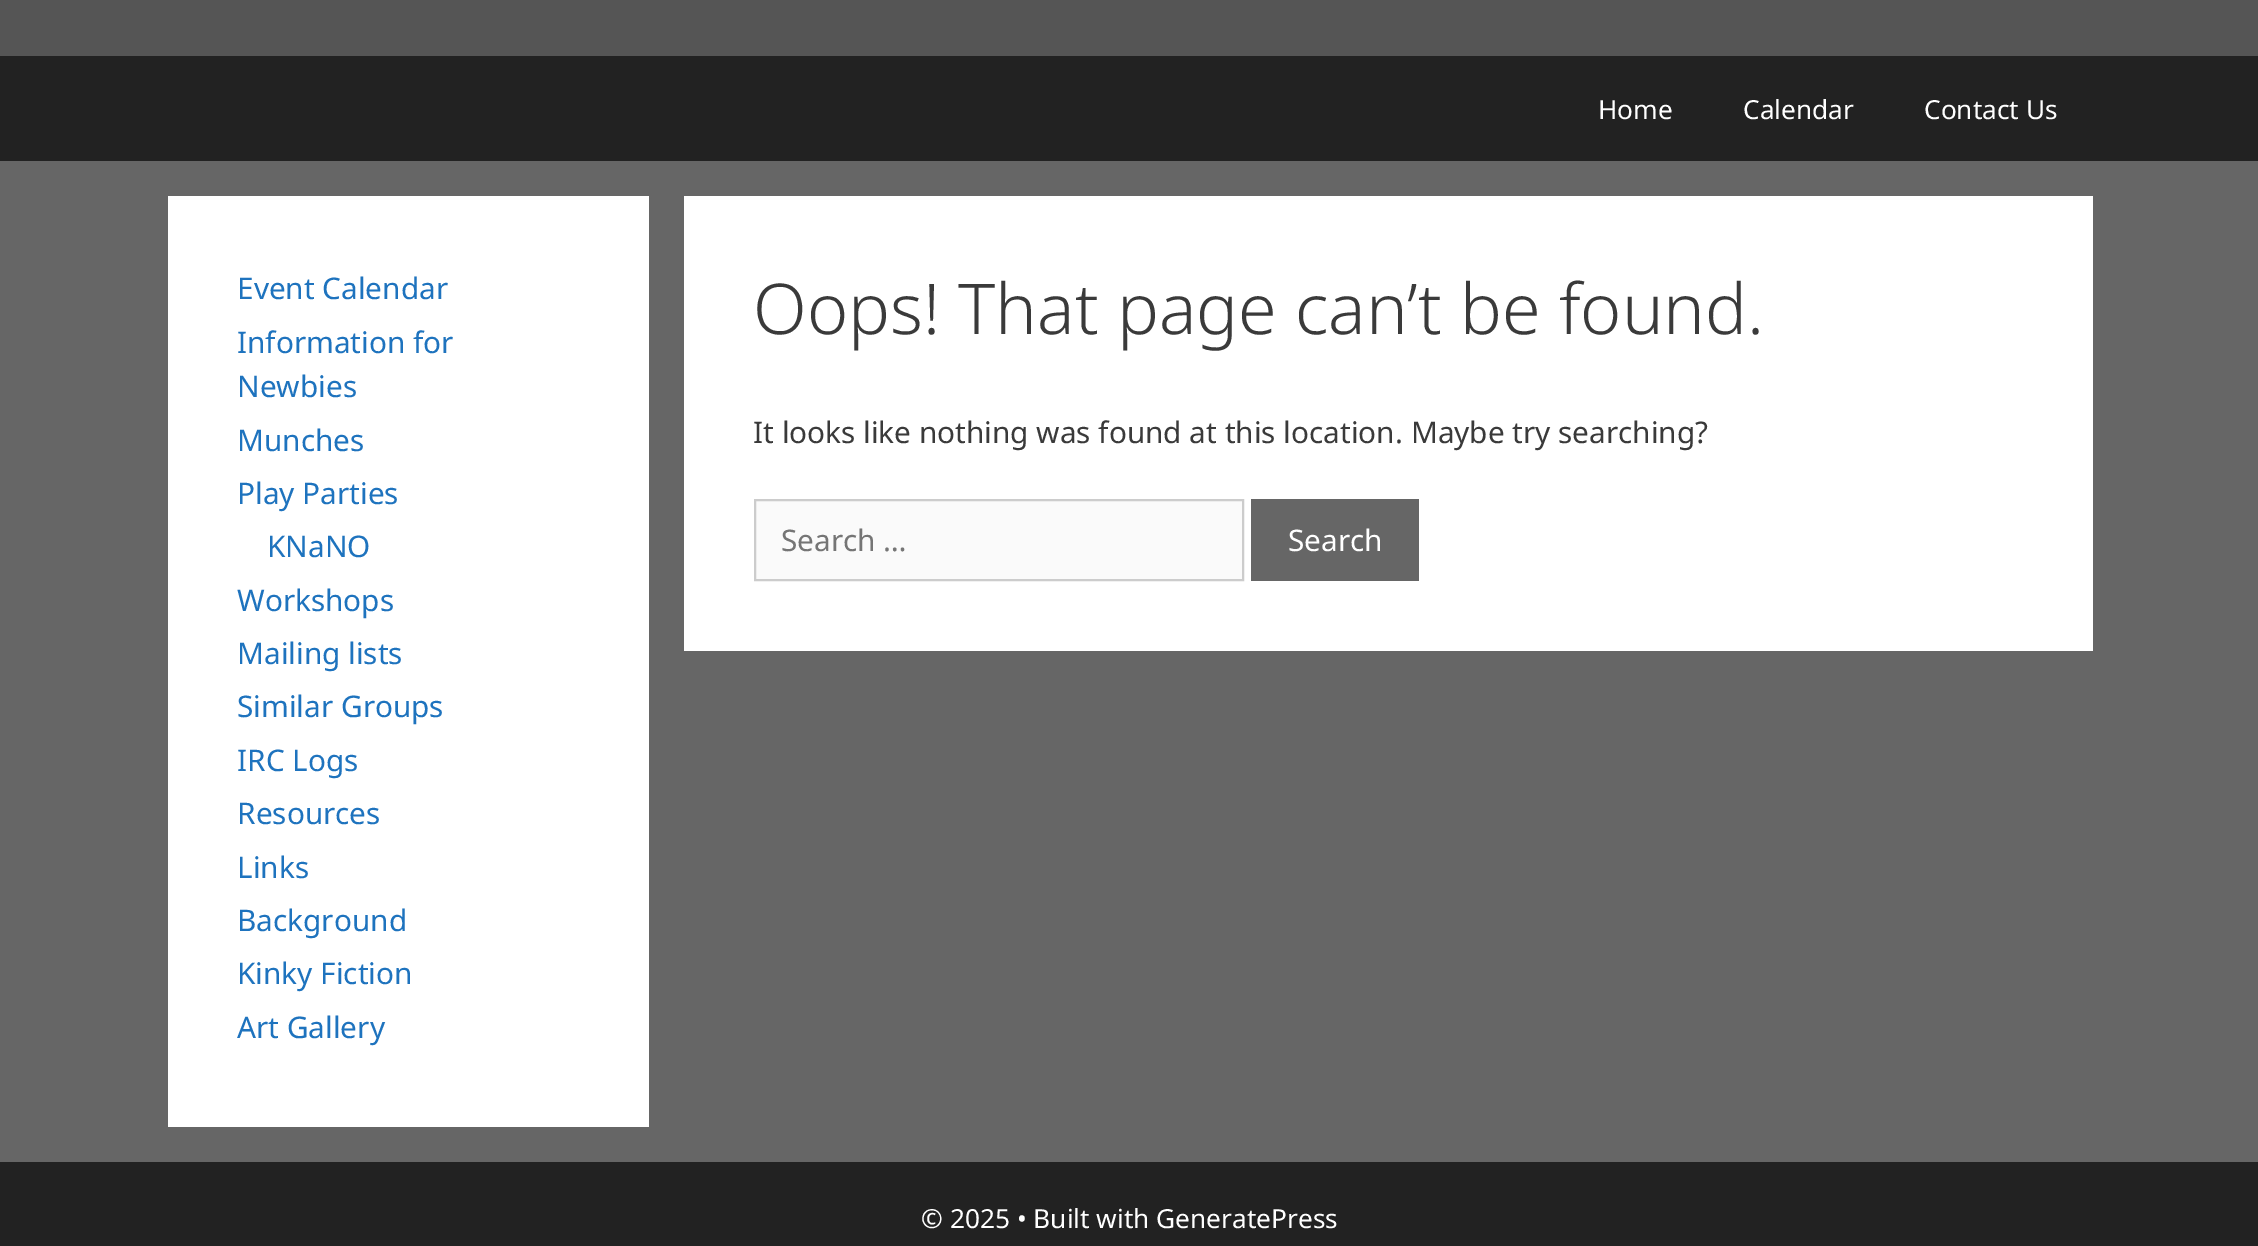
%!PS-Adobe-3.0
%%BoundingBox: 0 0 2258 1246
%%LanguageLevel: 3
%%Pages: 1
%%EndComments
%%BeginProlog
/setink { dup -16 bitshift 255 div exch dup -8 bitshift 255 and 255 div exch 255 and 255 div setrgbcolor } def
/usefont { [ exch dup neg 0 0 3 -1 roll 0 0 ] selectfont } def
%%EndProlog
%%BeginSetup
<< /PageSize [2258 1246] >> setpagedevice
%%EndSetup
%%Page: 1 1
0 1246 translate 1 -1 scale
4 setmiterlimit
16#666666 setink
0 0 2258 1246 rectfill
16#555555 setink
0 0 2258 56 rectfill
16#222222 setink
0 56 2258 105 rectfill
/NotoSans-Regular 26.25 usefont
16#FFFFFF setink
[
    [(Home) 1598 119]
    [(Calendar) 1743 119]
    [(Contact Us) 1924 119]
] { aload pop moveto show } forall
168 196 481 931 rectfill
/NotoSans-Regular 29.75 usefont
16#1E73BE setink
[
    [(Event Calendar) 237 299]
    [(Information for) 237 353]
    [(Newbies) 237 397]
    [(Munches) 237 451]
    [(Play Parties) 237 504]
    [(KNaNO) 267 557]
    [(Workshops) 237 611]
    [(Mailing lists) 237 664]
    [(Similar Groups) 237 717]
    [(IRC Logs) 237 771]
    [(Resources) 237 824]
    [(Links) 237 878]
    [(Background) 237 931]
    [(Kinky Fiction) 237 984]
    [(Art Gallery) 237 1038]
] { aload pop moveto show } forall
16#FFFFFF setink
684 196 1409 455 rectfill
/NotoSans-Light 70 usefont
16#3A3A3A setink
753 334 moveto (Oops! That page can’t be found.) show
/NotoSans-Regular 29.75 usefont
753 443 moveto (It looks like nothing was found at this location. Maybe try searching?) show
16#FAFAFA setink
755 500 moveto 1243 500 lineto 1243 580 lineto 755 580 lineto closepath gsave fill grestore
16#CCCCCC setink
2 setlinewidth
stroke
16#757575 setink
781 551 moveto (Search …) show
16#666666 setink
1251 499 168 82 rectfill
16#FFFFFF setink
1288 551 moveto (Search) show
16#222222 setink
0 1162 2258 84 rectfill
/NotoSans-Regular 26.25 usefont
16#FFFFFF setink
921 1228 moveto (© 2025 • Built with GeneratePress) show
showpage
%%EOF
